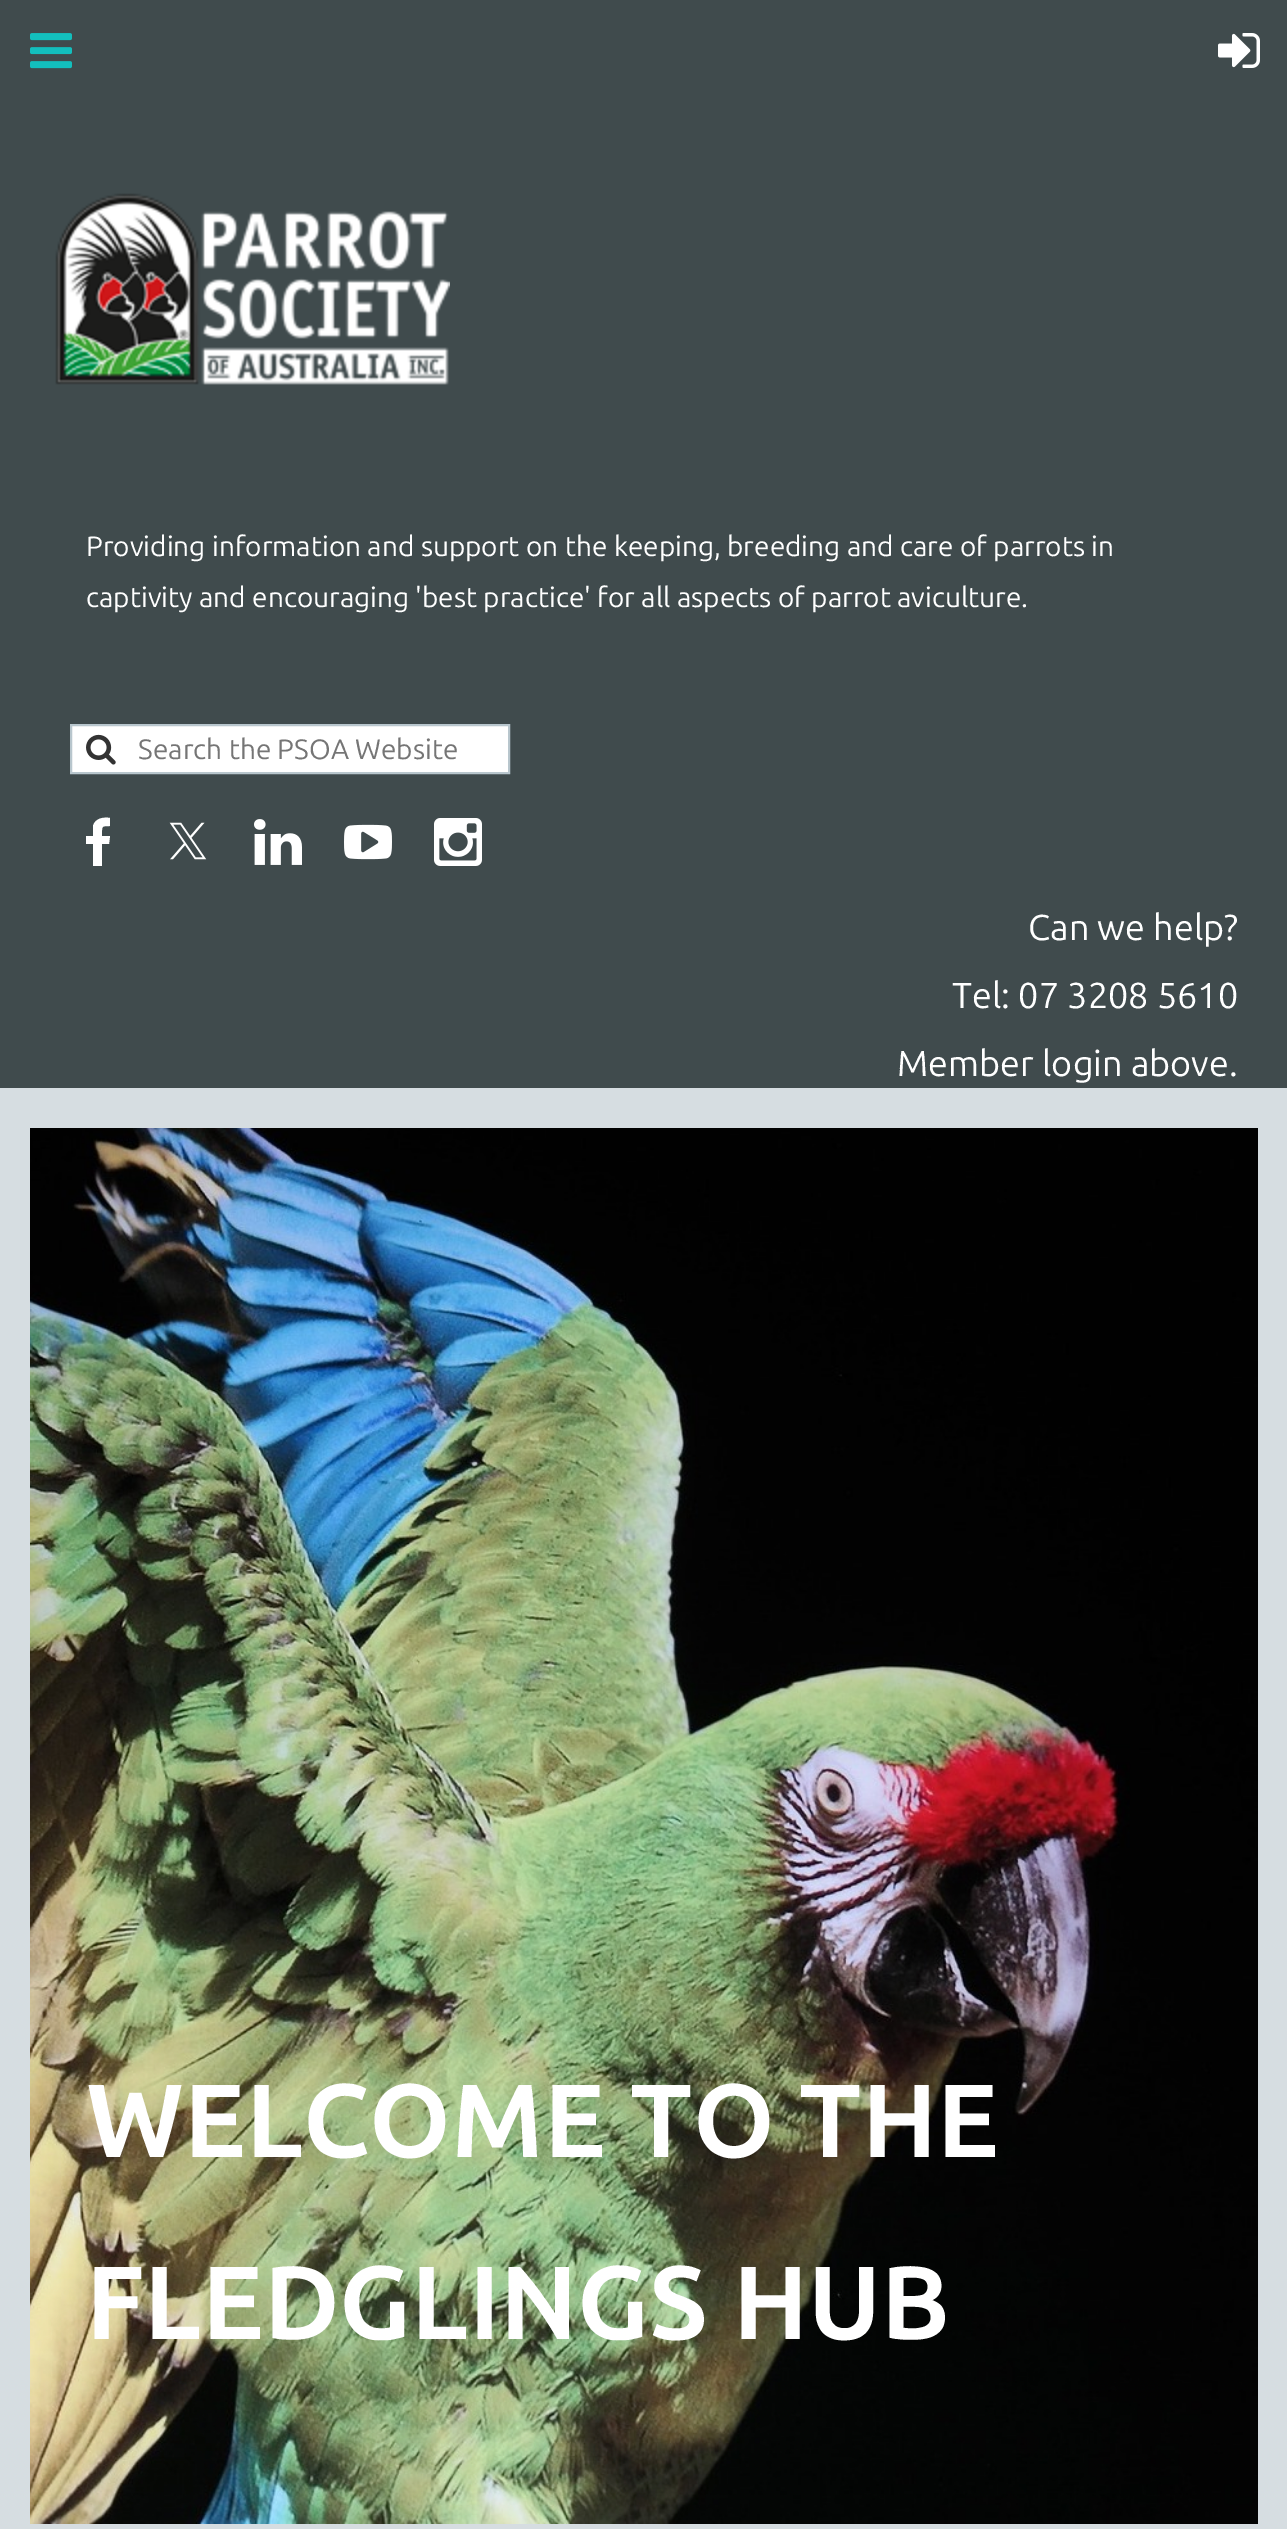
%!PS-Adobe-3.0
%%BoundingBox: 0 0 1287 2529
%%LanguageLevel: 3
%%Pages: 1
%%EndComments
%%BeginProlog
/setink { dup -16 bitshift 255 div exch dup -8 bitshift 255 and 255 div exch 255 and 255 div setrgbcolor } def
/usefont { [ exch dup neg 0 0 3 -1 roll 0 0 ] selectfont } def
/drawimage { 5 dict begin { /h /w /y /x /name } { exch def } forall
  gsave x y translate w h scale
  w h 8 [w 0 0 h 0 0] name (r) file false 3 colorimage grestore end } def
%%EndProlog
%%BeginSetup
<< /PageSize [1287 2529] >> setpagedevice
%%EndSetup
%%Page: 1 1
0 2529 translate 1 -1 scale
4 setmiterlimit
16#D6DDE1 setink
0 0 1287 2529 rectfill
16#404B4D setink
0 0 1287 1088 rectfill
(img1.raw) 30 33 42 36 drawimage
(img2.raw) 1218 33 42 35 drawimage
(img3.raw) 55 193 395 192 drawimage
/Ubuntu-Regular 28 usefont
16#FFFFFF setink
86 556 moveto (Providing information and support on the keeping, breeding and care of parrots in) show
86 607 moveto (captivity and encouraging 'best practice' for all aspects of parrot aviculture.) show
71 725 moveto 509 725 lineto 509 773 lineto 71 773 lineto closepath gsave fill grestore
16#B8C6CD setink
2 setlinewidth
stroke
(img4.raw) 86 734 30 31 drawimage
16#757575 setink
138 759 moveto (Search the PSOA Website) show
16#FFFFFF setink
110 826 moveto 101 826 102 826 102 836 curveto 110 836 lineto 109 844 lineto 102 844 lineto 102 866 lineto 93 866 lineto 93 844 lineto 86 844 lineto 86 836 lineto 93 836 lineto 93 826 lineto 95 818 104 817 110 818 curveto closepath fill
(img5.raw) 169 822 38 38 drawimage
(img6.raw) 254 819 48 46 drawimage
(img7.raw) 344 824 48 36 drawimage
(img8.raw) 434 818 48 48 drawimage
/Ubuntu-Regular 36 usefont
[
    [(Can we help?) 1028 940]
    [(Tel: 07 3208 5610) 952 1008]
    [(Member login above.) 897 1076]
] { aload pop moveto show } forall
(img9.raw) 30 1128 1228 1396 drawimage
/Ubuntu-Bold 104 usefont
86 2157 moveto (WELCOME TO THE) show
86 2339 moveto (FLEDGLINGS HUB) show
showpage
%%EOF
